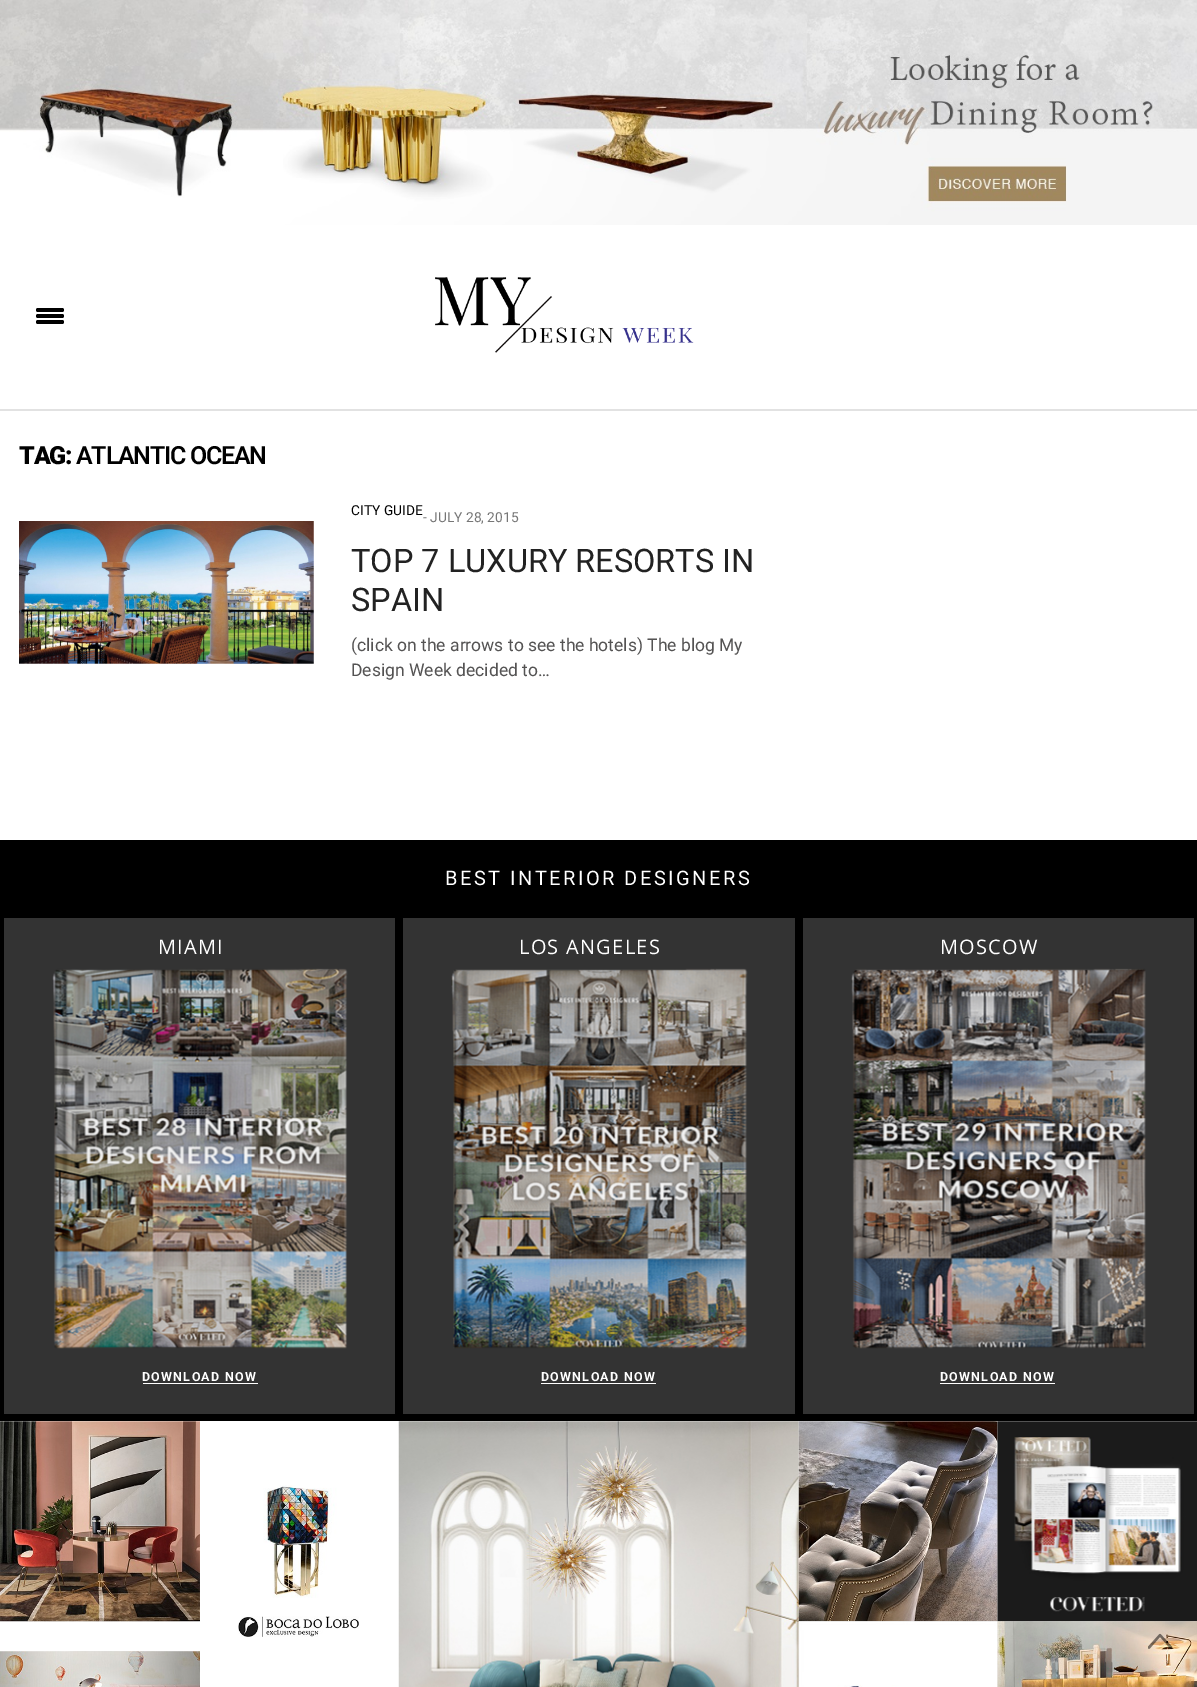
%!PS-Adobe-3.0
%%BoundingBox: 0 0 1197 1687
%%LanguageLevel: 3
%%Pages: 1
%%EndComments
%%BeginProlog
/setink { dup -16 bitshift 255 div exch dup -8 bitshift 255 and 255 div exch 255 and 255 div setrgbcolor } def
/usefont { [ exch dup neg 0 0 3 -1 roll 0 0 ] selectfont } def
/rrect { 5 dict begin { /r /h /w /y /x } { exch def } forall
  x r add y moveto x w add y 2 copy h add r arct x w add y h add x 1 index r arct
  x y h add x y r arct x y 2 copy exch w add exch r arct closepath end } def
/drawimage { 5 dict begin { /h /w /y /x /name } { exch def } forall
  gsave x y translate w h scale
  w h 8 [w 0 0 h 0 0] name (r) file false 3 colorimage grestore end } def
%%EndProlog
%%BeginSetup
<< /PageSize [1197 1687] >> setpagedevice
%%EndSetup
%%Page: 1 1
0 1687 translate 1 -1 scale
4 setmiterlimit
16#FFFFFF setink
0 0 1197 1687 rectfill
(img1.raw) 0 0 1197 225 drawimage
16#E2E2E2 setink
0 409 1197 2 rectfill
16#000000 setink
36 308 28 4 2 rrect fill
36 314 28 4 2 rrect fill
36 320 28 4 2 rrect fill
(img2.raw) 435 277 259 76 drawimage
/Roboto-Black 25 usefont
19 464 moveto -1.25 0 (TAG:) ashow
/Roboto-SemiBold 25 usefont
76 464 moveto -1.25 0 (ATLANTIC OCEAN) ashow
(img3.raw) 19 521 295 143 drawimage
/Roboto-Regular 13.75 usefont
351 515 moveto (CITY GUIDE) show
16#767676 setink
423 522 moveto (- JULY 28, 2015) show
/Roboto-Regular 32.5 usefont
16#222222 setink
351 572 moveto (TOP 7 LUXURY RESORTS IN) show
351 611 moveto (SPAIN) show
/Roboto-Regular 17.5 usefont
16#545353 setink
351 651 moveto (\(click on the arrows to see the hotels\) The blog My) show
351 676 moveto (Design Week decided to…) show
16#000000 setink
0 840 1197 581 rectfill
/Roboto-Regular 20 usefont
16#FFFFFF setink
445 885 moveto 2.5 0 (BEST INTERIOR DESIGNERS) ashow
16#333333 setink
4 918 391 496 rectfill
/OpenSans-Regular 20 usefont
16#FFFFFF setink
158 954 moveto 1.25 0 (MIAMI) ashow
(img4.raw) 52 968 296 381 drawimage
/Roboto-Bold 12.5 usefont
142 1381 moveto 1.25 0 (DOWNLOAD NOW) ashow
143 1383 115 1 rectfill
16#333333 setink
403 918 392 496 rectfill
/OpenSans-Regular 20 usefont
16#FFFFFF setink
519 954 moveto 1.25 0 (LOS ANGELES) ashow
(img5.raw) 451 968 297 381 drawimage
/Roboto-Bold 12.5 usefont
541 1381 moveto 1.25 0 (DOWNLOAD NOW) ashow
541 1383 115 1 rectfill
16#333333 setink
803 918 391 496 rectfill
/OpenSans-Regular 20 usefont
16#FFFFFF setink
940 954 moveto 1.25 0 (MOSCOW) ashow
(img6.raw) 851 968 295 381 drawimage
/Roboto-Bold 12.5 usefont
940 1381 moveto 1.25 0 (DOWNLOAD NOW) ashow
940 1383 115 1 rectfill
(img7.raw) 0 1421 200 201 drawimage
(img8.raw) 238 1485 121 152 drawimage
(img9.raw) 0 1651 200 36 drawimage
(img10.raw) 398 1421 401 266 drawimage
(img11.raw) 798 1421 200 201 drawimage
(img12.raw) 997 1421 200 201 drawimage
(img13.raw) 798 1621 200 66 drawimage
(img14.raw) 997 1621 200 66 drawimage
(img15.raw) 1148 1633 25 16 drawimage
showpage
%%EOF
